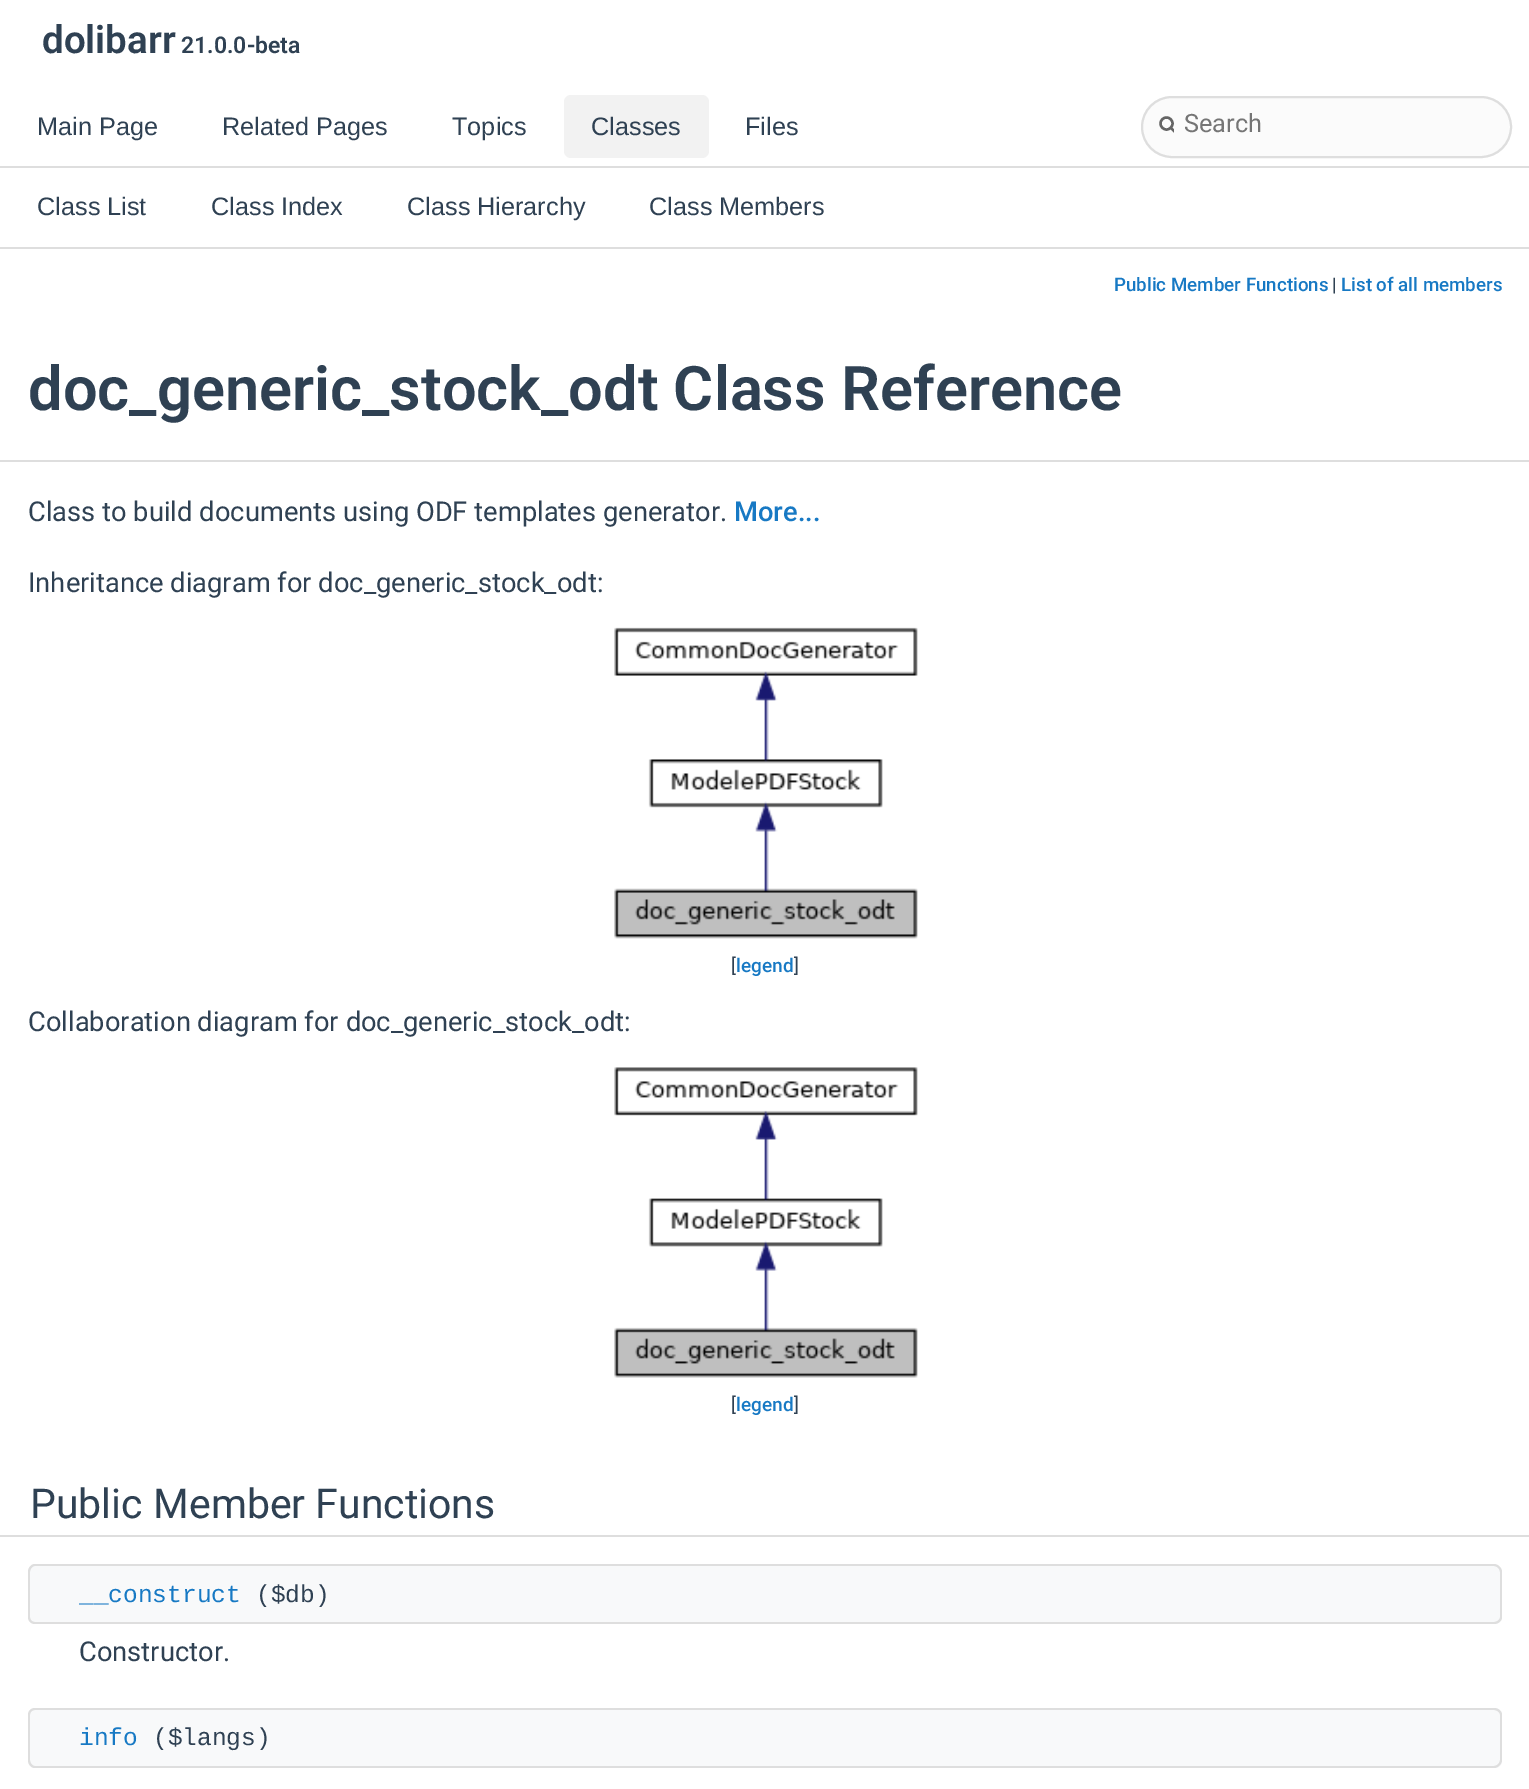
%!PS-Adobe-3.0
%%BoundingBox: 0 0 1529 1789
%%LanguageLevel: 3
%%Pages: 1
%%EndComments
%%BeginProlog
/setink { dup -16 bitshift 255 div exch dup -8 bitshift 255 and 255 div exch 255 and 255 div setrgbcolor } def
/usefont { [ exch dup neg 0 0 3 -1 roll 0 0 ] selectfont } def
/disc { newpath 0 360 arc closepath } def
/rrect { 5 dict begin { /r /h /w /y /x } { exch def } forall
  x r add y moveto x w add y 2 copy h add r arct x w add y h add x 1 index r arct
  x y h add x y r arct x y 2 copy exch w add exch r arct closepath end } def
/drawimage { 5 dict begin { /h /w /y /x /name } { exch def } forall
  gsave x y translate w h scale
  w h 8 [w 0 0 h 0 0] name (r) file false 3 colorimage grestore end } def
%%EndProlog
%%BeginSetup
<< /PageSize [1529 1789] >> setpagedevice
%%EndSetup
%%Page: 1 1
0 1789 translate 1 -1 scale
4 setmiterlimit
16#FFFFFF setink
0 0 1529 1789 rectfill
16#DEDEDE setink
0 247 1529 2 rectfill
/Roboto-SemiBold 38.5 usefont
16#2F4153 setink
42 53 moveto (dolibarr) show
/Roboto-SemiBold 23 usefont
181 53 moveto (21.0.0-beta) show
16#DEDEDE setink
0 166 1529 2 rectfill
/LiberationSans-Regular 25.25 usefont
16#2F4153 setink
[
    [(Main Page) 37 135]
    [(Related Pages) 222 135]
    [(Topics) 452 135]
] { aload pop moveto show } forall
16#F2F2F2 setink
564 95 145 63 7 rrect fill
16#2F4153 setink
591 135 moveto (Classes) show
745 135 moveto (Files) show
16#FBFBFB setink
1142 97 369 60 30 rrect gsave fill grestore
16#DEDEDE setink
2 setlinewidth
stroke
16#656565 setink
2.4 setlinewidth
1166.5 123.5 6 disc stroke
gsave
1157 109 17 33 rectclip
1 setlinecap
1171 128 moveto 1176 133 lineto stroke
grestore
/Roboto-Regular 25.25 usefont
16#757575 setink
1184 132 moveto (Search) show
/LiberationSans-Regular 25.25 usefont
16#2F4153 setink
[
    [(Class List) 37 215]
    [(Class Index) 211 215]
    [(Class Hierarchy) 407 215]
    [(Class Members) 649 215]
] { aload pop moveto show } forall
16#DEDEDE setink
0 460 1529 2 rectfill
/Roboto-Medium 18.75 usefont
16#1779C4 setink
1114 291 moveto (Public Member Functions) show
/Roboto-Regular 18.75 usefont
16#2F4153 setink
1332 291 moveto (|) show
/Roboto-Medium 18.75 usefont
16#1779C4 setink
1341 291 moveto (List of all members) show
/Roboto-SemiBold 61.4 usefont
16#2F4153 setink
28 410 moveto (doc_generic_stock_odt Class Reference) show
/Roboto-Regular 27.3 usefont
28 521 moveto (Class to build documents using ODF templates generator.) show
/Roboto-Medium 27.3 usefont
16#1779C4 setink
734 521 moveto (More...) show
/Roboto-Regular 27.3 usefont
16#2F4153 setink
28 592 moveto (Inheritance diagram for doc_generic_stock_odt:) show
(img1.raw) 614 627 304 312 drawimage
/Roboto-Regular 19 usefont
731 972 moveto ([) show
/Roboto-Medium 19 usefont
16#1779C4 setink
736 972 moveto (legend) show
/Roboto-Regular 19 usefont
16#2F4153 setink
794 972 moveto (]) show
/Roboto-Regular 27.3 usefont
28 1031 moveto (Collaboration diagram for doc_generic_stock_odt:) show
(img2.raw) 614 1067 304 311 drawimage
/Roboto-Regular 19 usefont
731 1411 moveto ([) show
/Roboto-Medium 19 usefont
16#1779C4 setink
736 1411 moveto (legend) show
/Roboto-Regular 19 usefont
16#2F4153 setink
794 1411 moveto (]) show
16#DEDEDE setink
-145 1467 moveto -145 1537 lineto 1325 1537 lineto 1325 1535 lineto 30 1535 lineto 30 1467 lineto closepath fill
205 1535 moveto 205 1537 lineto 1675 1537 lineto 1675 1467 lineto 1500 1467 lineto 1500 1535 lineto closepath fill
16#FFFFFF setink
-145 1465 moveto -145 1535 lineto 1325 1535 lineto 30 1535 lineto 30 1465 lineto closepath fill
205 1535 moveto 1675 1535 lineto 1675 1465 lineto 1500 1465 lineto 1500 1535 lineto closepath fill
/Roboto-Regular 41 usefont
16#2F4153 setink
30 1518 moveto (Public Member Functions) show
16#F8F9FA setink
35 1565 moveto 79 1565 lineto 79 1624 lineto 35 1624 lineto 31 1624 28 1621 28 1617 curveto 28 1572 lineto 28 1568 31 1565 35 1565 curveto closepath fill
16#DEDEDE setink
35 1564 moveto 79 1564 lineto 79 1624 lineto 35 1624 lineto 31 1624 28 1621 28 1617 curveto 28 1572 lineto 28 1568 31 1564 35 1564 curveto closepath 35 1566 moveto 79 1566 lineto 79 1622 lineto 35 1622 lineto 32 1622 30 1620 30 1617 curveto 30 1572 lineto 30 1569 32 1566 35 1566 curveto closepath eofill
16#F8F9FA setink
79 1565 moveto 1495 1565 lineto 1499 1565 1502 1568 1502 1572 curveto 1502 1617 lineto 1502 1621 1499 1624 1495 1624 curveto 79 1624 lineto closepath fill
16#DEDEDE setink
79 1564 moveto 1494 1564 lineto 1498 1564 1502 1568 1502 1572 curveto 1502 1617 lineto 1502 1621 1498 1624 1494 1624 curveto 79 1624 lineto closepath 79 1566 moveto 1494 1566 lineto 1497 1566 1500 1569 1500 1572 curveto 1500 1617 lineto 1500 1620 1497 1622 1494 1622 curveto 79 1622 lineto closepath eofill
/LiberationMono-Regular 24.5 usefont
16#1779C4 setink
79 1602 moveto (__construct) show
16#2F4153 setink
256 1602 moveto (\($db\)) show
/Roboto-Regular 27.3 usefont
79 1661 moveto (Constructor.) show
16#F8F9FA setink
35 1708 moveto 79 1708 lineto 79 1768 lineto 35 1768 lineto 31 1768 28 1765 28 1761 curveto 28 1715 lineto 28 1711 31 1708 35 1708 curveto closepath fill
16#DEDEDE setink
35 1708 moveto 79 1708 lineto 79 1768 lineto 35 1768 lineto 31 1768 28 1764 28 1760 curveto 28 1715 lineto 28 1711 31 1708 35 1708 curveto closepath 35 1710 moveto 79 1710 lineto 79 1766 lineto 35 1766 lineto 32 1766 30 1763 30 1760 curveto 30 1715 lineto 30 1712 32 1710 35 1710 curveto closepath eofill
16#F8F9FA setink
79 1708 moveto 1495 1708 lineto 1499 1708 1502 1711 1502 1715 curveto 1502 1761 lineto 1502 1765 1499 1768 1495 1768 curveto 79 1768 lineto closepath fill
16#DEDEDE setink
79 1708 moveto 1494 1708 lineto 1498 1708 1502 1711 1502 1715 curveto 1502 1760 lineto 1502 1764 1498 1768 1494 1768 curveto 79 1768 lineto closepath 79 1710 moveto 1494 1710 lineto 1497 1710 1500 1712 1500 1715 curveto 1500 1760 lineto 1500 1763 1497 1766 1494 1766 curveto 79 1766 lineto closepath eofill
/LiberationMono-Regular 24.5 usefont
16#1779C4 setink
79 1745 moveto (info) show
16#2F4153 setink
153 1745 moveto (\($langs\)) show
showpage
%%EOF
